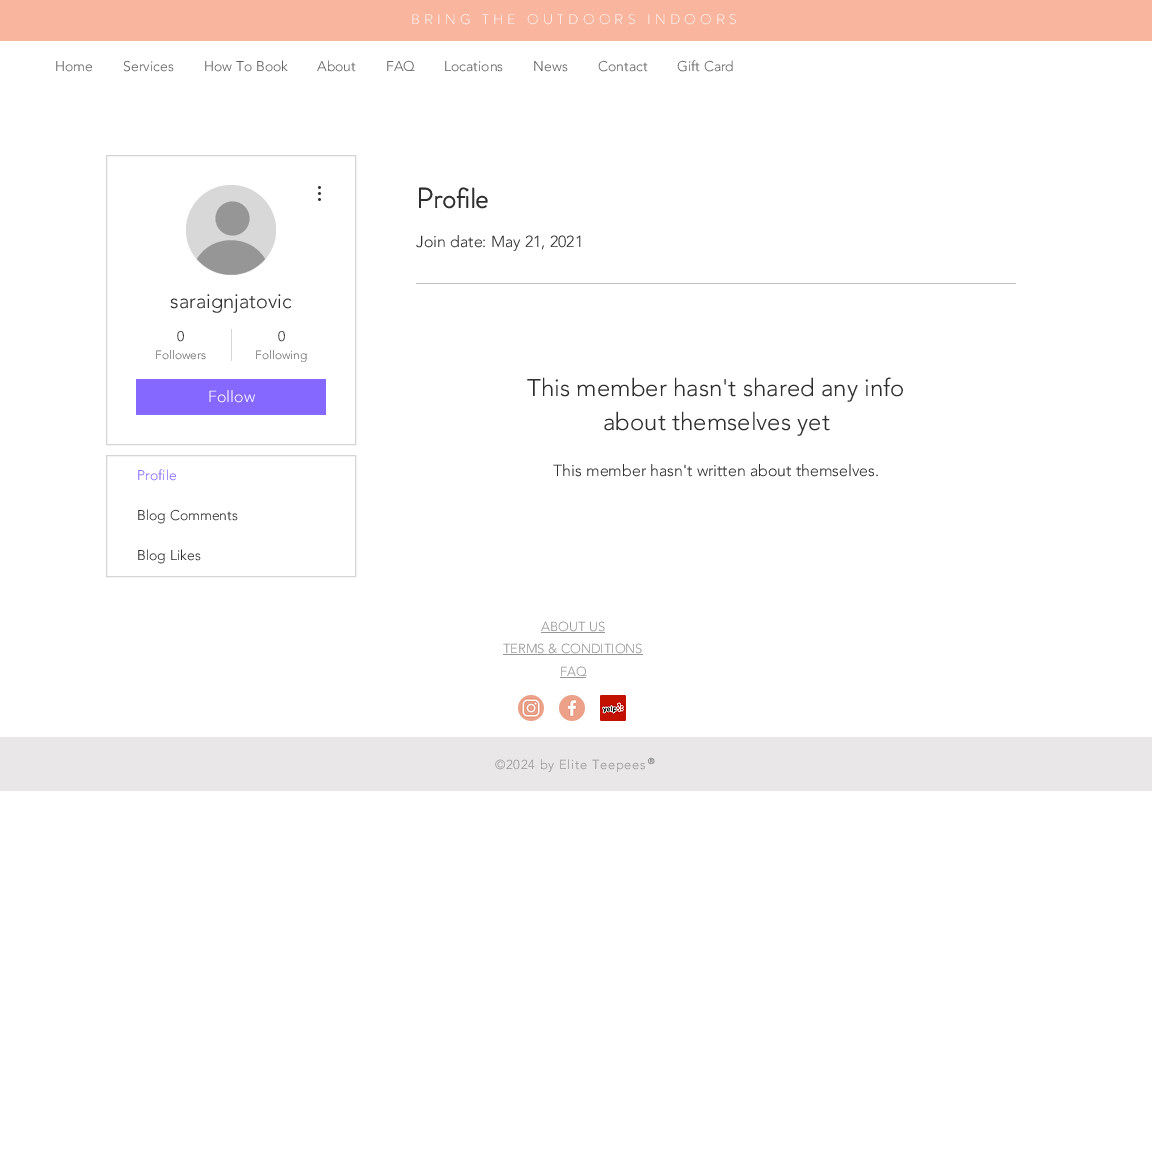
%!PS-Adobe-3.0
%%BoundingBox: 0 0 1152 1166
%%LanguageLevel: 3
%%Pages: 1
%%EndComments
%%BeginProlog
/setink { dup -16 bitshift 255 div exch dup -8 bitshift 255 and 255 div exch 255 and 255 div setrgbcolor } def
/usefont { [ exch dup neg 0 0 3 -1 roll 0 0 ] selectfont } def
/disc { newpath 0 360 arc closepath } def
/drawimage { 5 dict begin { /h /w /y /x /name } { exch def } forall
  gsave x y translate w h scale
  w h 8 [w 0 0 h 0 0] name (r) file false 3 colorimage grestore end } def
%%EndProlog
%%BeginSetup
<< /PageSize [1152 1166] >> setpagedevice
%%EndSetup
%%Page: 1 1
0 1166 translate 1 -1 scale
4 setmiterlimit
16#FFFFFF setink
0 0 1152 1166 rectfill
16#FAB59E setink
0 0 1152 41 rectfill
/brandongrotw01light-Light 14 usefont
16#FFFFFF setink
411 24 moveto 4.2 0 (BRING THE OUTDOORS INDOORS) ashow
/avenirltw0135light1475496-Light 14 usefont
16#636362 setink
[
    [(Home) 55 71]
    [(Services) 123 71]
    [(How To Book) 204 71]
    [(About) 317 71]
    [(FAQ) 386 71]
    [(Locations) 444 71]
    [(News) 533 71]
    [(Contact) 598 71]
    [(Gift Card) 677 71]
] { aload pop moveto show } forall
16#D5D5D5 setink
106.5 155.5 249 289 rectstroke
16#D8D8D8 setink
231 230 45 disc fill
16#969696 setink
232.5 218.5 17 disc fill
265 259 moveto 247 280 215 280 197 259 curveto 212 234 250 234 265 259 curveto closepath fill
(img1.raw) 318 186 3 15 drawimage
/avenirltw0135light1475496-Light 20 usefont
16#2E2E2E setink
170 308 moveto (saraignjatovic) show
/avenirltw0135light1475496-Light 14 usefont
177 341 moveto (0) show
/avenirltw0135light1475496-Light 12 usefont
16#6D6D6D setink
155 359 moveto (Followers) show
16#D5D5D5 setink
231 329 1 32 rectfill
/avenirltw0135light1475496-Light 14 usefont
16#2E2E2E setink
278 341 moveto (0) show
/avenirltw0135light1475496-Light 12 usefont
16#6D6D6D setink
255 359 moveto (Following) show
16#8468FF setink
136 379 190 36 rectfill
/avenirltw0135light1475496-Light 16 usefont
16#FFFFFF setink
208 402 moveto (Follow) show
16#D5D5D5 setink
106.5 455.5 249 121 rectstroke
/avenirltw0135light1475496-Light 14 usefont
16#8468FF setink
137 480 moveto (Profile) show
16#2E2E2E setink
137 520 moveto (Blog Comments) show
137 560 moveto (Blog Likes) show
/brandongrotw01light-Bold 28 usefont
416 208 moveto (Profile) show
/avenirltw0135light1475496-Light 16 usefont
416 247 moveto (Join date: May 21, 2021) show
16#C0C0C0 setink
416 283 600 1 rectfill
/avenirltw0135light1475496-Light 24 usefont
16#2E2E2E setink
527 396 moveto (This member hasn't shared any info) show
603 430 moveto (about themselves yet) show
/avenirltw0135light1475496-Light 16 usefont
553 476 moveto (This member hasn't written about themselves.) show
/avenirltw0135light1475496-Light 13 usefont
16#969696 setink
541 631 moveto (ABOUT US) show
541 632 64 1 rectfill
503 653 moveto (TERMS & CONDITIONS) show
503 654 140 1 rectfill
560 676 moveto (FAQ) show
560 677 26 1 rectfill
(img2.raw) 518 695 26 26 drawimage
(img3.raw) 559 695 26 26 drawimage
(img4.raw) 600 695 26 26 drawimage
16#E9E7E7 setink
0 737 1152 54 rectfill
16#969696 setink
495 769 moveto 0.65 0 (©2024 by Elite Teepees) ashow
/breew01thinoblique-Bold 16 usefont
646 769 moveto (®) show
showpage
%%EOF
